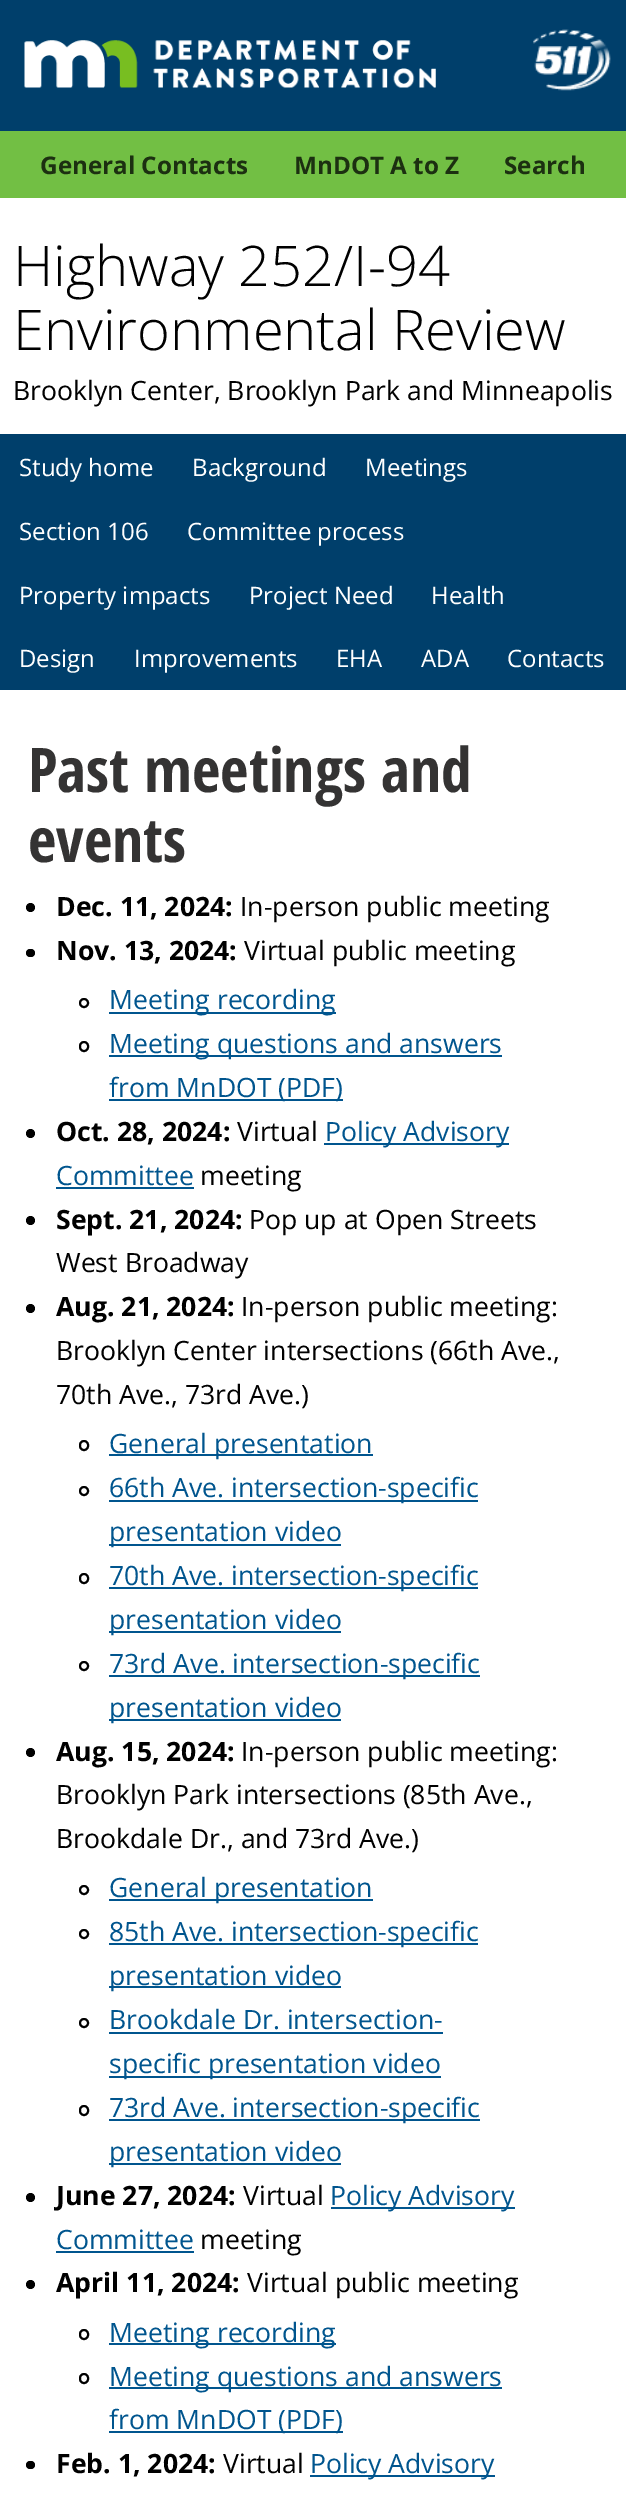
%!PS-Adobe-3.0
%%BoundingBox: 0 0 626 2504
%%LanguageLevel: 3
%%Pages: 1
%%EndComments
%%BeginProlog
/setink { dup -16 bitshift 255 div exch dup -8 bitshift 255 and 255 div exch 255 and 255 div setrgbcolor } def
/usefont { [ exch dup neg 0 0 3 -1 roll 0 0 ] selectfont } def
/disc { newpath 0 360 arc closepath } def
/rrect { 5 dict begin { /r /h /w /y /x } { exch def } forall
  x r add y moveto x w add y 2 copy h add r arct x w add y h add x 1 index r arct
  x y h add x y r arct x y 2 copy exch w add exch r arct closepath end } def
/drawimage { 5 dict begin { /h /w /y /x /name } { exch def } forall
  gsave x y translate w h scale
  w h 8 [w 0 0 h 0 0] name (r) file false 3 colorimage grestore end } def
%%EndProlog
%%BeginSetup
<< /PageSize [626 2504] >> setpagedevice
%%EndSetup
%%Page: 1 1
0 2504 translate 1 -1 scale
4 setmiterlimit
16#003F6B setink
0 0 626 2504 rectfill
(img1.raw) 24 40 412 48 drawimage
(img2.raw) 533 29 78 62 drawimage
16#72BF44 setink
0 131 626 67 rectfill
/OpenSans-Bold 24.25 usefont
16#1C3011 setink
[
    [(General Contacts) 40 174]
    [(MnDOT A to Z) 294 174]
    [(Search) 504 174]
] { aload pop moveto show } forall
16#FFFFFF setink
0 198 626 236 rectfill
/OpenSans-Light 56 usefont
16#000000 setink
13 286 moveto (Highway 252/I-94) show
13 350 moveto (Environmental Review) show
/OpenSans-Regular 26.6 usefont
13 400 moveto (Brooklyn Center, Brooklyn Park and Minneapolis) show
/OpenSans-Regular 24 usefont
16#FFFFFF setink
[
    [(Study home) 19 476]
    [(Background) 192 476]
    [(Meetings) 365 476]
    [(Section 106) 19 540]
    [(Committee process) 187 540]
    [(Property impacts) 19 604]
    [(Project Need) 249 604]
    [(Health) 431 604]
    [(Design) 19 667]
    [(Improvements) 134 667]
    [(EHA) 336 667]
    [(ADA) 421 667]
    [(Contacts) 507 667]
] { aload pop moveto show } forall
0 690 626 1814 rectfill
/OpenSansCondensed-Bold 61.5 usefont
16#343333 setink
28 792 moveto (Past meetings and) show
28 862 moveto (events) show
16#000000 setink
30.5 907.5 4.5 disc fill
/OpenSans-Bold 26.6 usefont
56 916 moveto (Dec. 11, 2024:) show
/OpenSans-Regular 26.6 usefont
240 916 moveto (In-person public meeting) show
26 949 9 8 4 rrect fill
/OpenSans-Bold 26.6 usefont
56 960 moveto (Nov. 13, 2024:) show
/OpenSans-Regular 26.6 usefont
244 960 moveto (Virtual public meeting) show
2 setlinewidth
84 1003 4 disc stroke
16#00558E setink
109 1012 227 2 rectfill
109 1009 moveto (Meeting recording) show
16#000000 setink
80 1042 8 9 4 rrect stroke
16#00558E setink
109 1055 393 2 rectfill
109 1053 moveto (Meeting questions and answers) show
109 1099 234 2 rectfill
109 1097 moveto (from MnDOT \(PDF\)) show
16#000000 setink
30.5 1133.5 4.5 disc fill
/OpenSans-Bold 26.6 usefont
56 1141 moveto (Oct. 28, 2024:) show
/OpenSans-Regular 26.6 usefont
237 1141 moveto (Virtual) show
16#00558E setink
324 1143 185 2 rectfill
325 1141 moveto (Policy Advisory) show
56 1185 moveto (Committee) show
56 1187 138 2 rectfill
16#000000 setink
200 1185 moveto (meeting) show
30.5 1220.5 4.5 disc fill
/OpenSans-Bold 26.6 usefont
56 1229 moveto (Sept. 21, 2024:) show
/OpenSans-Regular 26.6 usefont
249 1229 moveto (Pop up at Open Streets) show
56 1272 moveto (West Broadway) show
30.5 1308.5 4.5 disc fill
/OpenSans-Bold 26.6 usefont
56 1316 moveto (Aug. 21, 2024:) show
/OpenSans-Regular 26.6 usefont
[
    [(In-person public meeting:) 241 1316]
    [(Brooklyn Center intersections \(66th Ave.,) 56 1360]
    [(70th Ave., 73rd Ave.\)) 56 1404]
] { aload pop moveto show } forall
80 1441 8 9 4 rrect stroke
16#00558E setink
109 1454 264 2 rectfill
109 1453 moveto (General presentation) show
16#000000 setink
84 1491 4 disc stroke
16#00558E setink
109 1500 369 2 rectfill
109 1497 moveto (66th Ave. intersection-specific) show
109 1544 232 2 rectfill
109 1541 moveto (presentation video) show
16#000000 setink
80 1574 8 9 4 rrect stroke
16#00558E setink
109 1587 369 2 rectfill
109 1585 moveto (70th Ave. intersection-specific) show
109 1631 232 2 rectfill
109 1629 moveto (presentation video) show
16#000000 setink
84 1666 4 disc stroke
16#00558E setink
109 1675 371 2 rectfill
109 1673 moveto (73rd Ave. intersection-specific) show
109 1719 232 2 rectfill
109 1717 moveto (presentation video) show
16#000000 setink
30.5 1752.5 4.5 disc fill
/OpenSans-Bold 26.6 usefont
56 1761 moveto (Aug. 15, 2024:) show
/OpenSans-Regular 26.6 usefont
[
    [(In-person public meeting:) 241 1761]
    [(Brooklyn Park intersections \(85th Ave.,) 56 1804]
    [(Brookdale Dr., and 73rd Ave.\)) 56 1848]
] { aload pop moveto show } forall
84 1890 4 disc stroke
16#00558E setink
109 1899 264 2 rectfill
109 1897 moveto (General presentation) show
16#000000 setink
84 1934 4 disc stroke
16#00558E setink
109 1943 369 2 rectfill
109 1941 moveto (85th Ave. intersection-specific) show
109 1986 232 2 rectfill
109 1985 moveto (presentation video) show
16#000000 setink
84 2023 4 disc stroke
16#00558E setink
109 2029 moveto (Brookdale Dr. intersection-) show
109 2032 334 2 rectfill
109 2076 332 2 rectfill
109 2073 moveto (specific presentation video) show
16#000000 setink
80 2106 8 9 4 rrect stroke
16#00558E setink
109 2119 371 2 rectfill
109 2117 moveto (73rd Ave. intersection-specific) show
109 2163 232 2 rectfill
109 2161 moveto (presentation video) show
16#000000 setink
30.5 2197.5 4.5 disc fill
/OpenSans-Bold 26.6 usefont
56 2205 moveto (June 27, 2024:) show
/OpenSans-Regular 26.6 usefont
243 2205 moveto (Virtual) show
16#00558E setink
331 2207 184 2 rectfill
330 2205 moveto (Policy Advisory) show
56 2249 moveto (Committee) show
56 2251 138 2 rectfill
16#000000 setink
200 2249 moveto (meeting) show
30.5 2284.5 4.5 disc fill
/OpenSans-Bold 26.6 usefont
56 2292 moveto (April 11, 2024:) show
/OpenSans-Regular 26.6 usefont
247 2292 moveto (Virtual public meeting) show
80 2330 8 9 4 rrect stroke
16#00558E setink
109 2343 227 2 rectfill
109 2342 moveto (Meeting recording) show
16#000000 setink
80 2374 8 9 4 rrect stroke
16#00558E setink
109 2387 393 2 rectfill
109 2386 moveto (Meeting questions and answers) show
109 2431 234 2 rectfill
109 2429 moveto (from MnDOT \(PDF\)) show
16#000000 setink
26 2461 9 8 4 rrect fill
/OpenSans-Bold 26.6 usefont
56 2473 moveto (Feb. 1, 2024:) show
/OpenSans-Regular 26.6 usefont
223 2473 moveto (Virtual) show
16#00558E setink
310 2475 185 2 rectfill
310 2473 moveto (Policy Advisory) show
showpage
%%EOF
